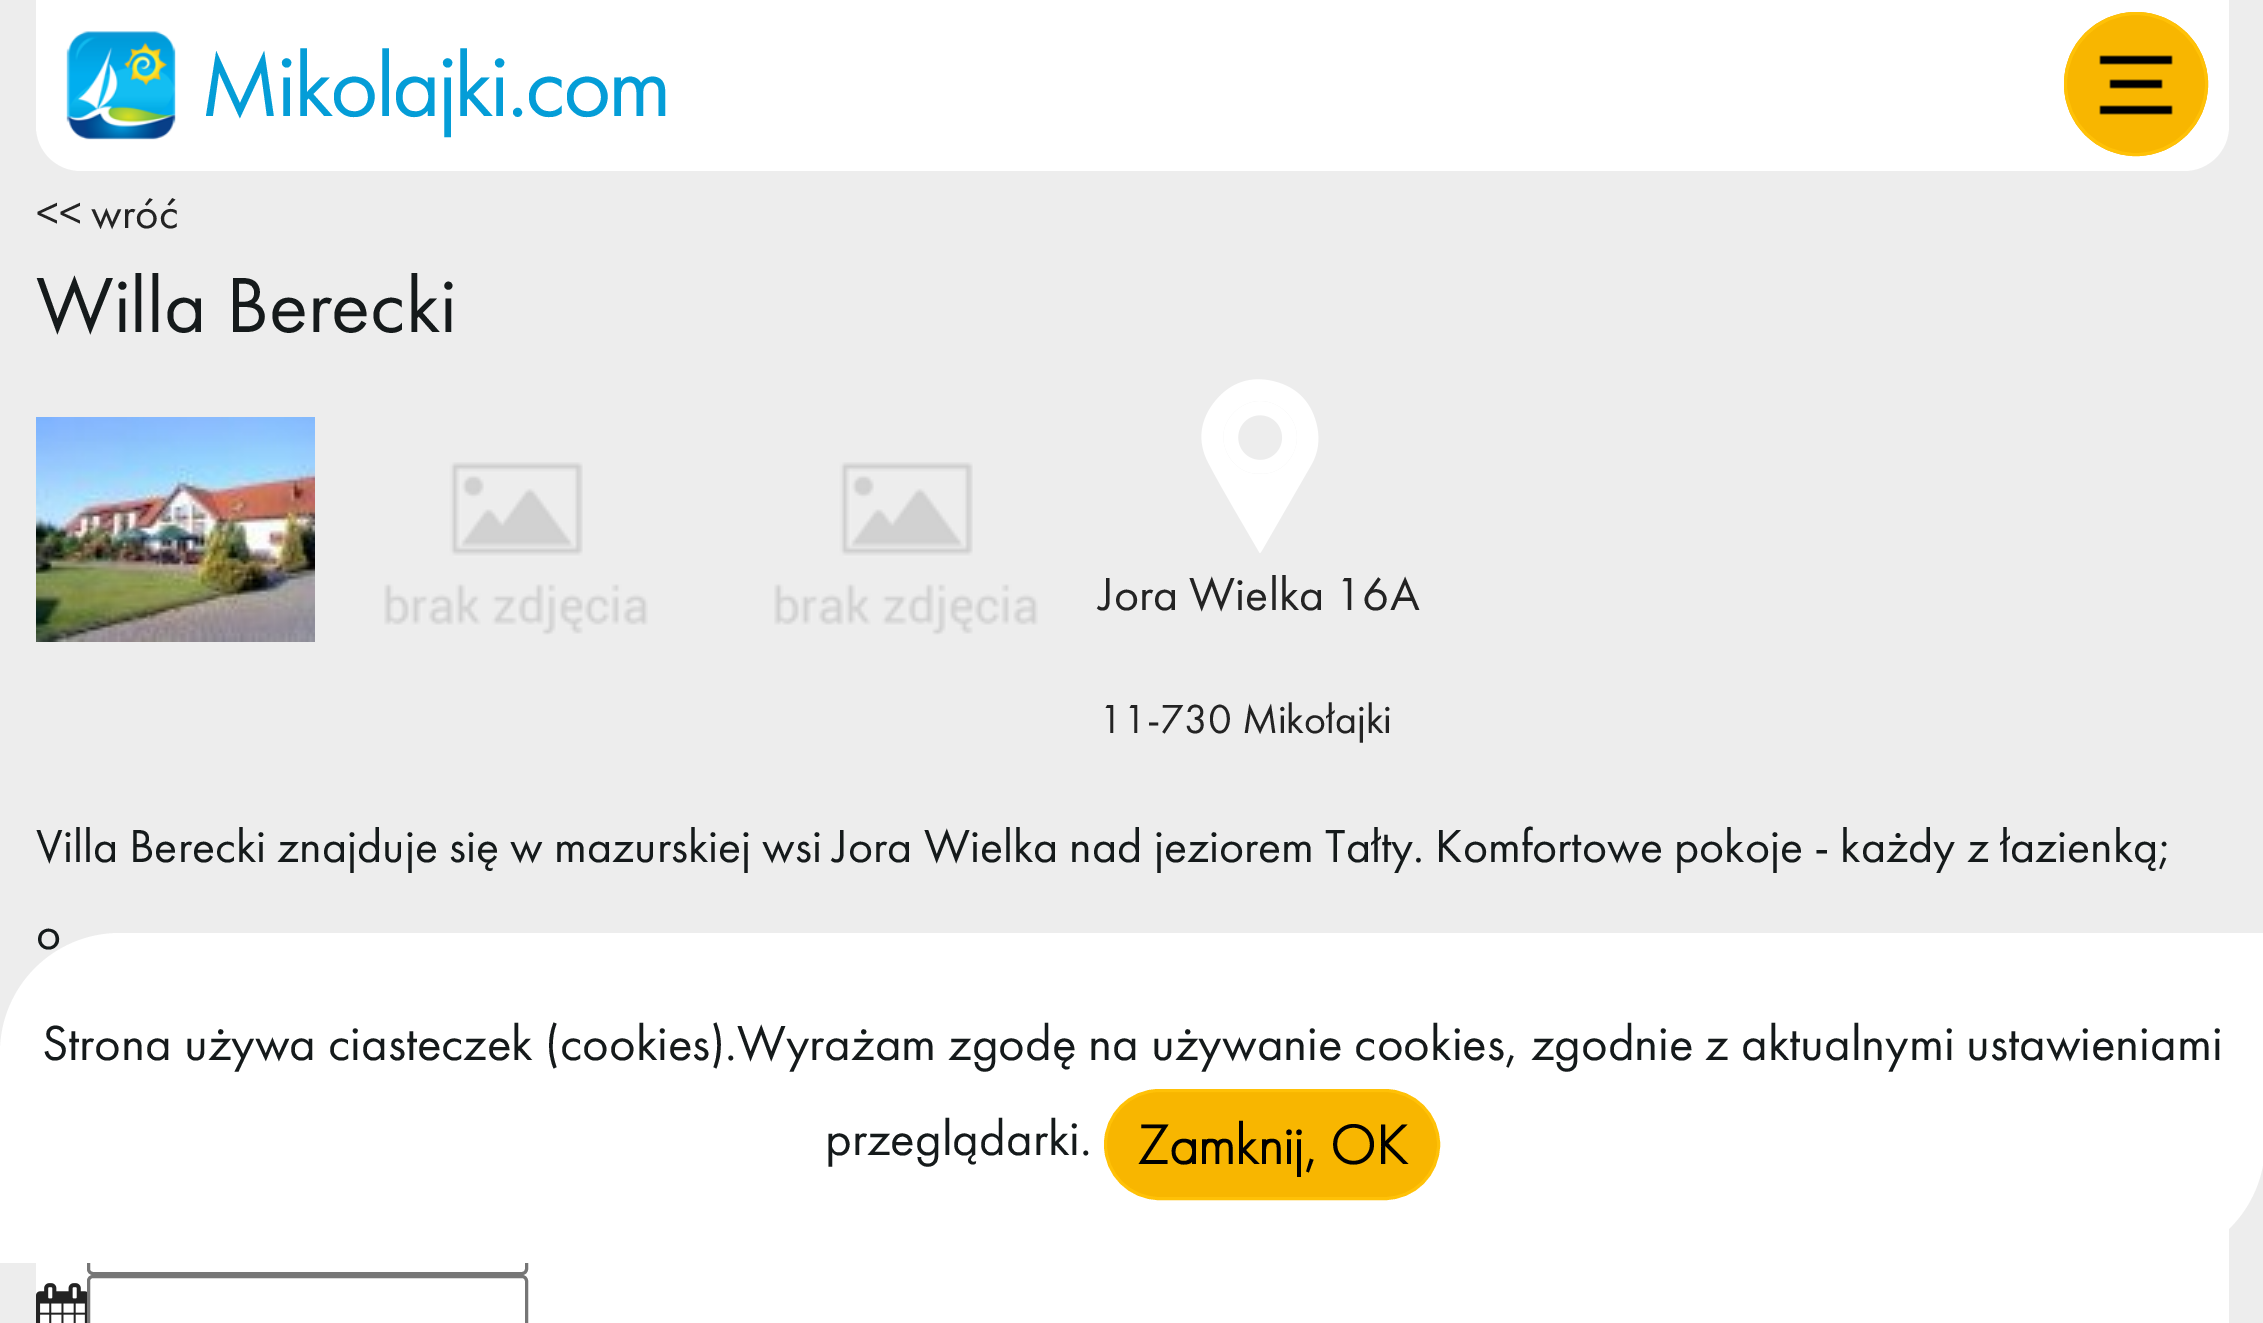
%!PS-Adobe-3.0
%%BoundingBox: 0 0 2263 1323
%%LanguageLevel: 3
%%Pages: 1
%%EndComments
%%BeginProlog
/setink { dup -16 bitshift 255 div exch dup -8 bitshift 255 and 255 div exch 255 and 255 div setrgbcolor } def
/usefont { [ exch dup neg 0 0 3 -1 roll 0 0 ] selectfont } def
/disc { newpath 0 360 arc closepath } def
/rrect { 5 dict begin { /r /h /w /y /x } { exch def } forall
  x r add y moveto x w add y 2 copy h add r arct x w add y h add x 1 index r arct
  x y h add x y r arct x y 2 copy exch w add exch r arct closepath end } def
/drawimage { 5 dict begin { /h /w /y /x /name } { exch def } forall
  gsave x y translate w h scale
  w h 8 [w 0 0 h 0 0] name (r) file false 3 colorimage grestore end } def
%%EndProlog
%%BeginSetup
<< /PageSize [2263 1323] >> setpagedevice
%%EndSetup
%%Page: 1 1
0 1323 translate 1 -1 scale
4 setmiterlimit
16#EDEDED setink
0 0 2263 1323 rectfill
16#FFFFFF setink
36 0 moveto 2229 0 lineto 2229 126 lineto 2229 151 2209 171 2184 171 curveto 81 171 lineto 56 171 36 151 36 126 curveto closepath fill
(img1.raw) 66 31 110 109 drawimage
/FuturaPT-Regular 93 usefont
16#049DD7 setink
200 116 moveto -3 0 (Mikolajki.com) ashow
16#F8B600 setink
2136 84 72 disc fill
(img2.raw) 2099 55 74 60 drawimage
16#FFC107 setink
3 setlinewidth
2136 84 70.5 disc stroke
/FuturaPT-Regular 45 usefont
16#232323 setink
36 228 moveto (<< wróć) show
/FuturaPT-Regular 81 usefont
16#151A1B setink
36 332 moveto (Willa Berecki) show
(img3.raw) 36 417 279 225 drawimage
(img4.raw) 384 462 264 173 drawimage
(img5.raw) 774 462 264 173 drawimage
(img6.raw) 1201 379 118 174 drawimage
/FuturaPT-Regular 48 usefont
16#232323 setink
1099 610 moveto (Jora Wielka 16A) show
/FuturaPT-Regular 42 usefont
1099 733 moveto (11-730 Mikołajki) show
/FuturaPT-Regular 48 usefont
16#151A1B setink
36 862 moveto (Villa Berecki znajduje się w mazurskiej wsi Jora Wielka nad jeziorem Tałty. Komfortowe pokoje - każdy z łazienką;) show
36 949 moveto (o) show
16#FFFFFF setink
36 1228 2193 95 rectfill
88.5 1171.5 438 102 4.5 rrect gsave fill grestore
16#767676 setink
stroke
(img7.raw) 36 1283 51 40 drawimage
88.5 1276.5 438 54 4.5 rrect stroke
16#FFFFFF setink
120 933 moveto 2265 933 lineto 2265 1143 lineto 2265 1209.5 2211.5 1263 2145 1263 curveto 0 1263 lineto 0 1053 lineto 0 986.5 53.5 933 120 933 curveto closepath fill
/FuturaPT-Regular 51 usefont
16#151A1B setink
42 1060 moveto (Strona używa ciasteczek \(cookies\).Wyrażam zgodę na używanie cookies, zgodnie z aktualnymi ustawieniami) show
825 1155 moveto (przeglądarki.) show
16#F8B600 setink
1105.5 1090.5 333 108 54 rrect gsave fill grestore
16#FFC107 setink
stroke
/FuturaPT-Bold 57 usefont
16#000000 setink
1137 1164 moveto (Zamknij, OK) show
showpage
%%EOF
